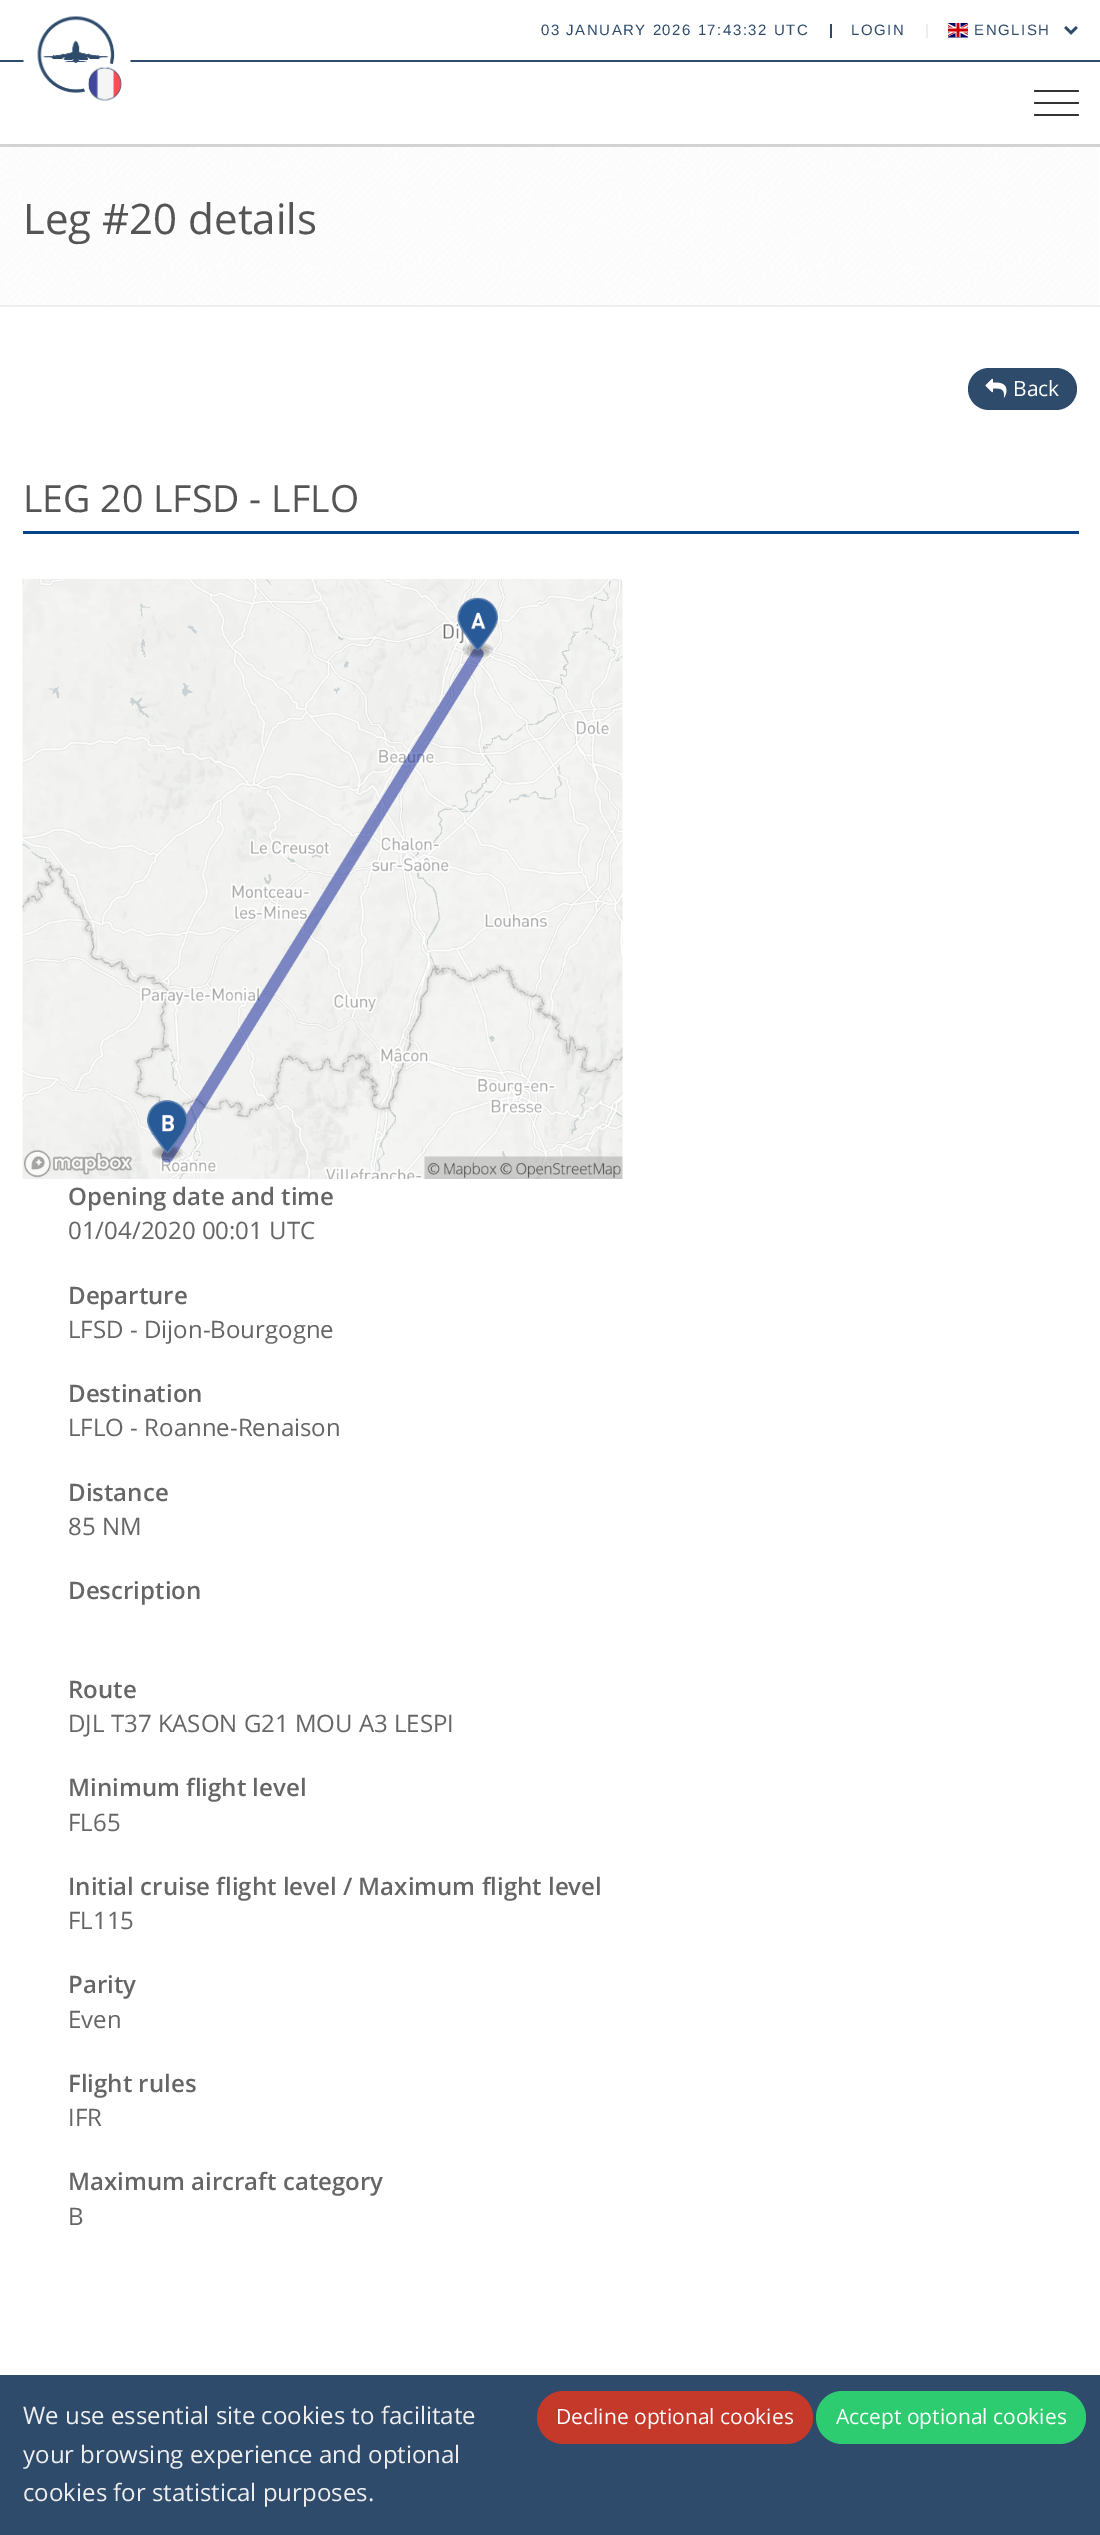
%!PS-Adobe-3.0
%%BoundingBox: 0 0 1100 2535
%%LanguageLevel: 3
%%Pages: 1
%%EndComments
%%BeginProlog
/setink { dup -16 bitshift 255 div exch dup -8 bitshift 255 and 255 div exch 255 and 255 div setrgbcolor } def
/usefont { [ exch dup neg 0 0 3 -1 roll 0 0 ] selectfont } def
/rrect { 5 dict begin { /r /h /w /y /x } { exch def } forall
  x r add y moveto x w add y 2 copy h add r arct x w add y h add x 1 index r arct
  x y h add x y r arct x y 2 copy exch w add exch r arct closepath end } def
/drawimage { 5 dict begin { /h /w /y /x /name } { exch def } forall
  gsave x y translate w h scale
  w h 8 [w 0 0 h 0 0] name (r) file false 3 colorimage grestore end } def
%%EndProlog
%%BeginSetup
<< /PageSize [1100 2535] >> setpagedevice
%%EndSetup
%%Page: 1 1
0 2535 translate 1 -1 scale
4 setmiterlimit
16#FFFFFF setink
0 0 1100 2535 rectfill
16#2E4B6C setink
0 60 1100 2 rectfill
16#D3D3D3 setink
0 144 1100 3 rectfill
16#FFFFFF setink
23 -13 108 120 54 rrect fill
(img1.raw) 37 16 85 85 drawimage
16#333333 setink
1034 90 45 2 1 rrect fill
1034 102 45 2 1 rrect fill
1034 114 45 2 1 rrect fill
/LiberationSans-Regular 15 usefont
16#2E4B6C setink
541 35 moveto 1.5 0 (03 JANUARY 2026 17:43:32 UTC) ashow
830 24 2 14 rectfill
851 35 moveto 1.5 0 (LOGIN) ashow
16#EEEEEE setink
926 24 2 14 rectfill
(img2.raw) 948 23 21 15 drawimage
16#2E4B6C setink
974 35 moveto 1.5 0 (ENGLISH) ashow
(img3.raw) 1064 26 14 9 drawimage
(img4.raw) 0 147 1099 158 drawimage
16#EEEEEE setink
0 305 1100 2 rectfill
/OpenSans-Regular 42 usefont
16#555555 setink
23 234 moveto (Leg #20 details) show
16#2E4B6C setink
968 368 109 42 21 rrect fill
(img5.raw) 985 378 22 20 drawimage
/OpenSans-Regular 21 usefont
16#FFFFFF setink
1013 396 moveto (Back) show
16#06448A setink
23 531 1056 3 rectfill
/OpenSans-Regular 37.5 usefont
16#555555 setink
23 512 moveto (LEG 20 LFSD - LFLO) show
(img6.raw) 22 579 601 600 drawimage
/OpenSans-SemiBold 24 usefont
16#666666 setink
68 1205 moveto (Opening date and time) show
/OpenSans-Regular 24 usefont
68 1239 moveto (01/04/2020 00:01 UTC) show
/OpenSans-SemiBold 24 usefont
68 1304 moveto (Departure) show
/OpenSans-Regular 24 usefont
68 1338 moveto (LFSD - Dijon-Bourgogne) show
/OpenSans-SemiBold 24 usefont
68 1402 moveto (Destination) show
/OpenSans-Regular 24 usefont
68 1436 moveto (LFLO - Roanne-Renaison) show
/OpenSans-SemiBold 24 usefont
68 1501 moveto (Distance) show
/OpenSans-Regular 24 usefont
68 1535 moveto (85 NM) show
/OpenSans-SemiBold 24 usefont
68 1599 moveto (Description) show
68 1698 moveto (Route) show
/OpenSans-Regular 24 usefont
68 1732 moveto (DJL T37 KASON G21 MOU A3 LESPI) show
/OpenSans-SemiBold 24 usefont
68 1796 moveto (Minimum flight level) show
/OpenSans-Regular 24 usefont
68 1831 moveto (FL65) show
/OpenSans-SemiBold 24 usefont
68 1895 moveto (Initial cruise flight level / Maximum flight level) show
/OpenSans-Regular 24 usefont
68 1929 moveto (FL115) show
/OpenSans-SemiBold 24 usefont
68 1993 moveto (Parity) show
/OpenSans-Regular 24 usefont
68 2028 moveto (Even) show
/OpenSans-SemiBold 24 usefont
68 2092 moveto (Flight rules) show
/OpenSans-Regular 24 usefont
68 2126 moveto (IFR) show
/OpenSans-SemiBold 24 usefont
68 2190 moveto (Maximum aircraft category) show
/OpenSans-Regular 24 usefont
68 2225 moveto (B) show
16#2E4B6C setink
0 2375 1100 160 rectfill
16#EEEEEE setink
[
    [(We use essential site cookies to facilitate) 23 2424]
    [(your browsing experience and optional) 23 2463]
    [(cookies for statistical purposes.) 23 2501]
] { aload pop moveto show } forall
16#C5392A setink
537 2391 276 53 26.5 rrect fill
/OpenSans-Regular 21 usefont
16#FFFFFF setink
556 2424 moveto (Decline optional cookies) show
16#2ECC71 setink
816 2391 270 53 26.5 rrect fill
16#FFFFFF setink
836 2424 moveto (Accept optional cookies) show
showpage
%%EOF
